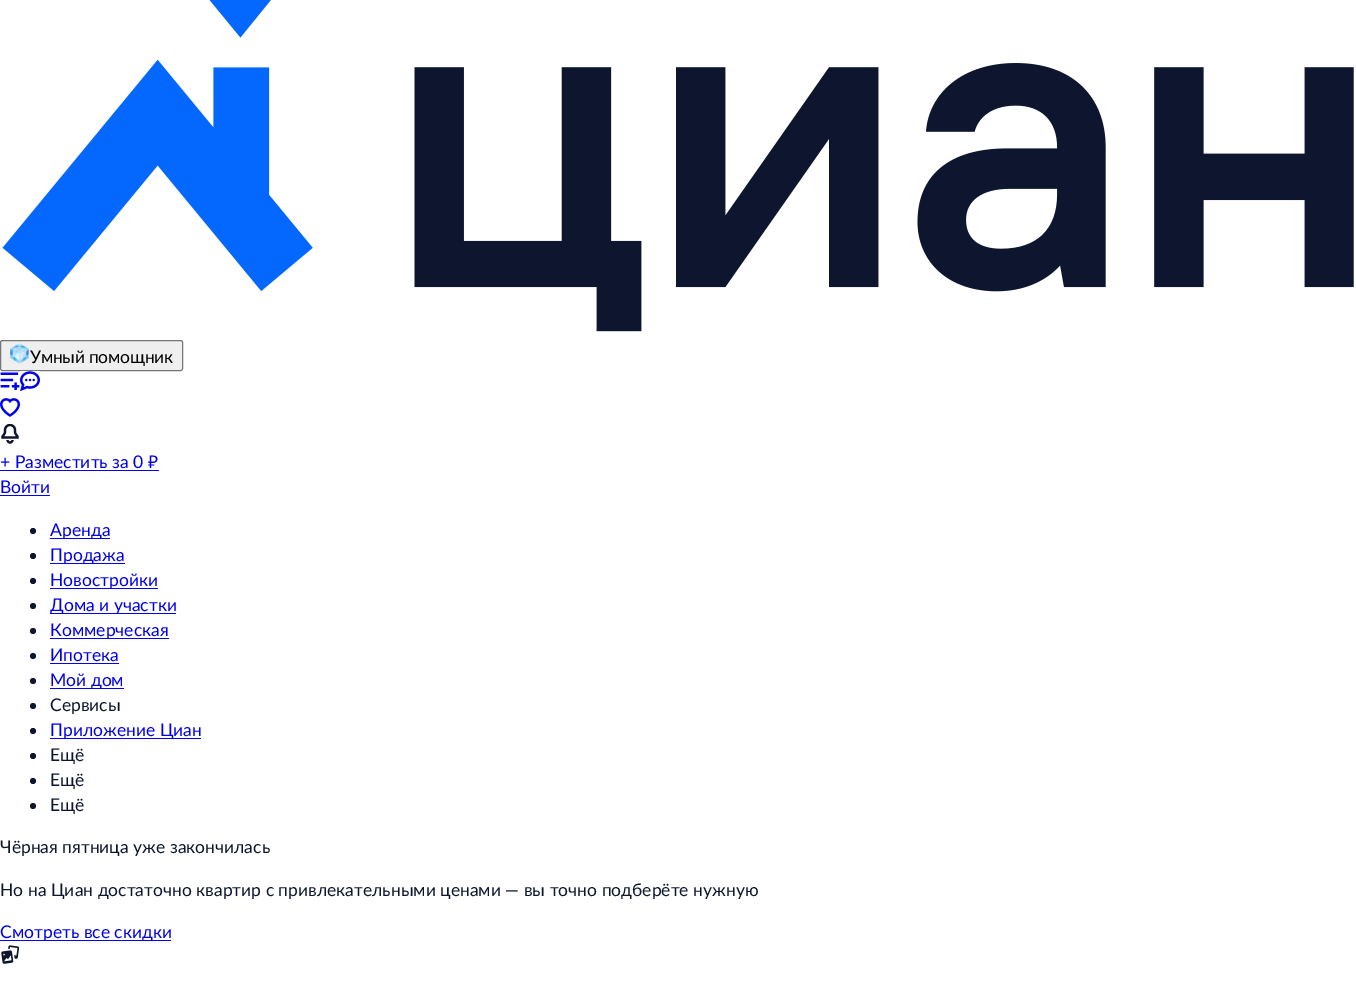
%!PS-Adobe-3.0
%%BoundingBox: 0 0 1356 987
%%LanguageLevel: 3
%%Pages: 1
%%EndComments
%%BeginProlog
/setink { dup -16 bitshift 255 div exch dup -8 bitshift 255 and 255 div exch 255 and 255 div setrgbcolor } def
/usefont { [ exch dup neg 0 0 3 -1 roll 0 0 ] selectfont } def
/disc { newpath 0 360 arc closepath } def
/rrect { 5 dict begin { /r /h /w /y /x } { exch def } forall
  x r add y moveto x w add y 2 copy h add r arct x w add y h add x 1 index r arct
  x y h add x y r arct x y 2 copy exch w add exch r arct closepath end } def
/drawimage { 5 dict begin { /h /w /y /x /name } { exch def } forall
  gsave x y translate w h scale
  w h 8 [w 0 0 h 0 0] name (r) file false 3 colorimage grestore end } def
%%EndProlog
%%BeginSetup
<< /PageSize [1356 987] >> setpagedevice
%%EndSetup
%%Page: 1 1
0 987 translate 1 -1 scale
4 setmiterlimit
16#FFFFFF setink
0 0 1356 987 rectfill
(img1.raw) 2 0 1352 332 drawimage
16#EFEFEF setink
0.5 340.5 182 30 2 rrect gsave fill grestore
16#767676 setink
stroke
(img2.raw) 10 343 19 21 drawimage
/Lato-Regular 17.5 usefont
16#000000 setink
30 363 moveto -0.25 0 (Умный помощник) ashow
(img3.raw) 0 372 20 18 drawimage
(img4.raw) 20 371 20 20 drawimage
(img5.raw) 0 398 20 19 drawimage
(img6.raw) 1 424 18 20 drawimage
16#0000EE setink
0 468 moveto (+ Разместить за 0) show
0 470 159 1 rectfill
/NotoSans-Regular 17.5 usefont
148 468 moveto (₽) show
/Lato-Regular 17.5 usefont
0 493 moveto (Войти) show
0 495 50 1 rectfill
16#0D162E setink
33 531 3 disc fill
16#0000EE setink
50 538 60 1 rectfill
50 536 moveto (Аренда) show
16#0D162E setink
33 556 3 disc fill
16#0000EE setink
50 563 75 1 rectfill
50 561 moveto (Продажа) show
16#0D162E setink
33 581 3 disc fill
16#0000EE setink
50 588 108 1 rectfill
50 586 moveto (Новостройки) show
16#0D162E setink
33 606 3 disc fill
16#0000EE setink
50 613 126 1 rectfill
50 611 moveto (Дома и участки) show
16#0D162E setink
33 631 3 disc fill
16#0000EE setink
50 638 119 1 rectfill
50 636 moveto (Коммерческая) show
16#0D162E setink
33 656 3 disc fill
16#0000EE setink
50 661 moveto (Ипотека) show
50 663 69 1 rectfill
16#0D162E setink
33 681 3 disc fill
16#0000EE setink
50 688 74 1 rectfill
50 686 moveto (Мой дом) show
16#0D162E setink
33 706 3 disc fill
50 711 moveto (Сервисы) show
33 731 3 disc fill
16#0000EE setink
50 738 151 1 rectfill
50 736 moveto (Приложение Циан) show
16#0D162E setink
33 756 3 disc fill
50 761 moveto (Ещё) show
33 781 3 disc fill
50 786 moveto (Ещё) show
33 806 3 disc fill
[
    [(Ещё) 50 811]
    [(Чёрная пятница уже закончилась) 0 853]
    [(Но на Циан достаточно квартир с привлекательными ценами — вы точно подберёте нужную) 0 896]
] { aload pop moveto show } forall
16#0000EE setink
0 940 171 1 rectfill
0 938 moveto (Смотреть все скидки) show
(img7.raw) 1 945 19 19 drawimage
showpage
%%EOF
